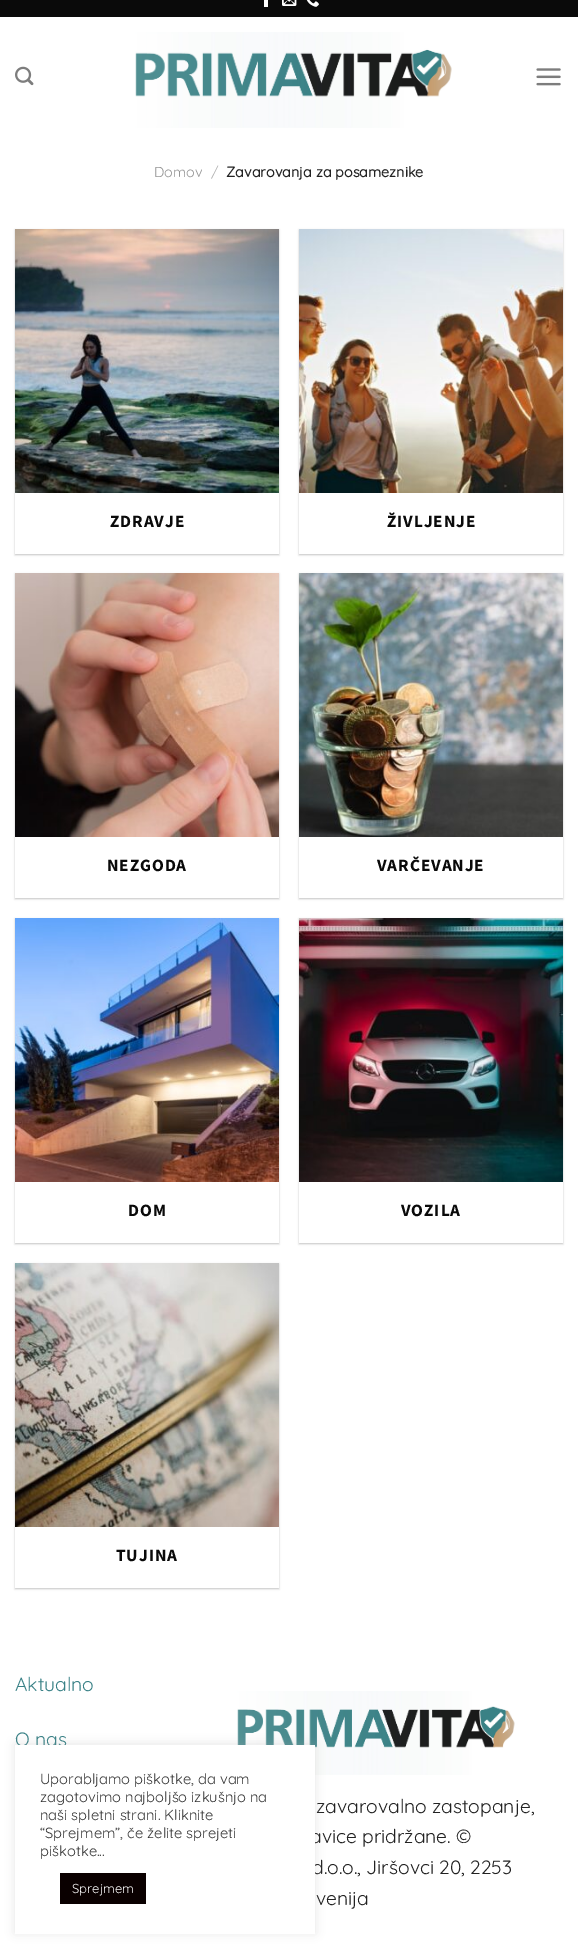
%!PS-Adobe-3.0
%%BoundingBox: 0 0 578 1949
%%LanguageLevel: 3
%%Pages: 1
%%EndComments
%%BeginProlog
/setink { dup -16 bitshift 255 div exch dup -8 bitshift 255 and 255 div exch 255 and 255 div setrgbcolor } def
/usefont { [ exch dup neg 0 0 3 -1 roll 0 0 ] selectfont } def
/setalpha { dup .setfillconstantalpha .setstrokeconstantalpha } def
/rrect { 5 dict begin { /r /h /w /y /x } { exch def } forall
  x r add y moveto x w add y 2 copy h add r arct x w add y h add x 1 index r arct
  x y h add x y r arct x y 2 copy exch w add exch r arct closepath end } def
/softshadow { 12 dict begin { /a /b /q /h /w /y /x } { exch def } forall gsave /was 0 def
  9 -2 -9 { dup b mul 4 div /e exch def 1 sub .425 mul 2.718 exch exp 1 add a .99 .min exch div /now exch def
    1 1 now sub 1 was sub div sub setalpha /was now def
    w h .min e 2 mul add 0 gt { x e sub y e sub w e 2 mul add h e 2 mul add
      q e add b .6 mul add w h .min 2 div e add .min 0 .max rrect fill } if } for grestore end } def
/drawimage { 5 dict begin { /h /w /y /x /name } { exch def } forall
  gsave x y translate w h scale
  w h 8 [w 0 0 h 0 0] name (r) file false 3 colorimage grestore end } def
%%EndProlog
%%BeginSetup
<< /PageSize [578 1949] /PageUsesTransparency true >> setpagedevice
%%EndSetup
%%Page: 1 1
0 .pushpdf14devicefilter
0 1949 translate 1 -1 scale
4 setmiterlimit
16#FFFFFF setink
0 0 578 1949 rectfill
16#0A0A0A setink
0 0 578 17 rectfill
16#FFFFFF setink
264 0 4 7 rectfill
(img1.raw) 282 0 15 6 drawimage
(img2.raw) 306 0 13 7 drawimage
(img3.raw) 15 66 19 20 drawimage
(img4.raw) 135 32 317 96 drawimage
(img5.raw) 536 68 25 18 drawimage
/Quicksand-Light 14.4 usefont
16#949494 setink
154 177 moveto (Domov) show
16#B2B2B2 setink
211 177 moveto (/) show
/Quicksand-Bold 14.4 usefont
16#222222 setink
226 177 moveto (Zavarovanja za posameznike) show
gsave
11 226 moveto 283 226 lineto 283 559 lineto 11 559 lineto closepath 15 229 moveto 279 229 lineto 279 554 lineto 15 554 lineto closepath eoclip newpath
16#000000 setink
15 230 264 325 0 1 0.24 softshadow
grestore
(img6.raw) 15 229 264 264 drawimage
/SourceSansPro-Bold 17.25 usefont
16#0A0A0A setink
110 527 moveto 0.9 0 (ZDRAVJE) ashow
gsave
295 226 moveto 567 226 lineto 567 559 lineto 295 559 lineto closepath 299 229 moveto 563 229 lineto 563 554 lineto 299 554 lineto closepath eoclip newpath
16#000000 setink
299 230 264 325 0 1 0.24 softshadow
grestore
(img7.raw) 299 229 264 264 drawimage
387 527 moveto 0.9 0 (ŽIVLJENJE) ashow
gsave
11 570 moveto 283 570 lineto 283 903 lineto 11 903 lineto closepath 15 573 moveto 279 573 lineto 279 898 lineto 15 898 lineto closepath eoclip newpath
16#000000 setink
15 574 264 325 0 1 0.24 softshadow
grestore
(img8.raw) 15 573 264 264 drawimage
107 871 moveto 0.9 0 (NEZGODA) ashow
gsave
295 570 moveto 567 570 lineto 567 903 lineto 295 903 lineto closepath 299 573 moveto 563 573 lineto 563 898 lineto 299 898 lineto closepath eoclip newpath
16#000000 setink
299 574 264 325 0 1 0.24 softshadow
grestore
(img9.raw) 299 573 264 264 drawimage
377 871 moveto 0.9 0 (VARČEVANJE) ashow
gsave
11 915 moveto 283 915 lineto 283 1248 lineto 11 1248 lineto closepath 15 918 moveto 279 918 lineto 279 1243 lineto 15 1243 lineto closepath eoclip newpath
16#000000 setink
15 919 264 325 0 1 0.24 softshadow
grestore
(img10.raw) 15 918 264 264 drawimage
128 1216 moveto 0.9 0 (DOM) ashow
gsave
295 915 moveto 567 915 lineto 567 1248 lineto 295 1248 lineto closepath 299 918 moveto 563 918 lineto 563 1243 lineto 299 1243 lineto closepath eoclip newpath
16#000000 setink
299 919 264 325 0 1 0.24 softshadow
grestore
(img11.raw) 299 918 264 264 drawimage
401 1216 moveto 0.9 0 (VOZILA) ashow
gsave
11 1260 moveto 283 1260 lineto 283 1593 lineto 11 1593 lineto closepath 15 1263 moveto 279 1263 lineto 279 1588 lineto 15 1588 lineto closepath eoclip newpath
16#000000 setink
15 1264 264 325 0 1 0.24 softshadow
grestore
(img12.raw) 15 1263 264 264 drawimage
116 1561 moveto 0.9 0 (TUJINA) ashow
/Quicksand-Light 19.25 usefont
16#398186 setink
15 1691 moveto (Aktualno) show
15 1746 moveto (O nas) show
(img13.raw) 237 1691 278 84 drawimage
16#222222 setink
[
    [(zavarovalno zastopanje,) 316 1813]
    [(avice pridržane. ©) 310 1843]
    [(d.o.o., Jiršovci 20, 2253) 312 1874]
    [(venija) 316 1905]
] { aload pop moveto show } forall
16#ACABAB setink
15 1744 300 189 0 5 0.3 softshadow
16#FFFFFF setink
15 1745 300 189 rectfill
/Quicksand-Light 14.7 usefont
16#333333 setink
[
    [(Uporabljamo piškotke, da vam) 40 1784]
    [(zagotovimo najboljšo izkušnjo na) 40 1802]
    [(naši spletni strani. Kliknite) 40 1820]
    [(“Sprejmem”, če želite sprejeti) 40 1838]
    [(piškotke...) 40 1856]
] { aload pop moveto show } forall
16#0A0000 setink
60 1873 86 31 rectfill
/Quicksand-Light 13 usefont
16#FFFFFF setink
72 1893 moveto (Sprejmem) show
.poppdf14devicefilter showpage
%%EOF
